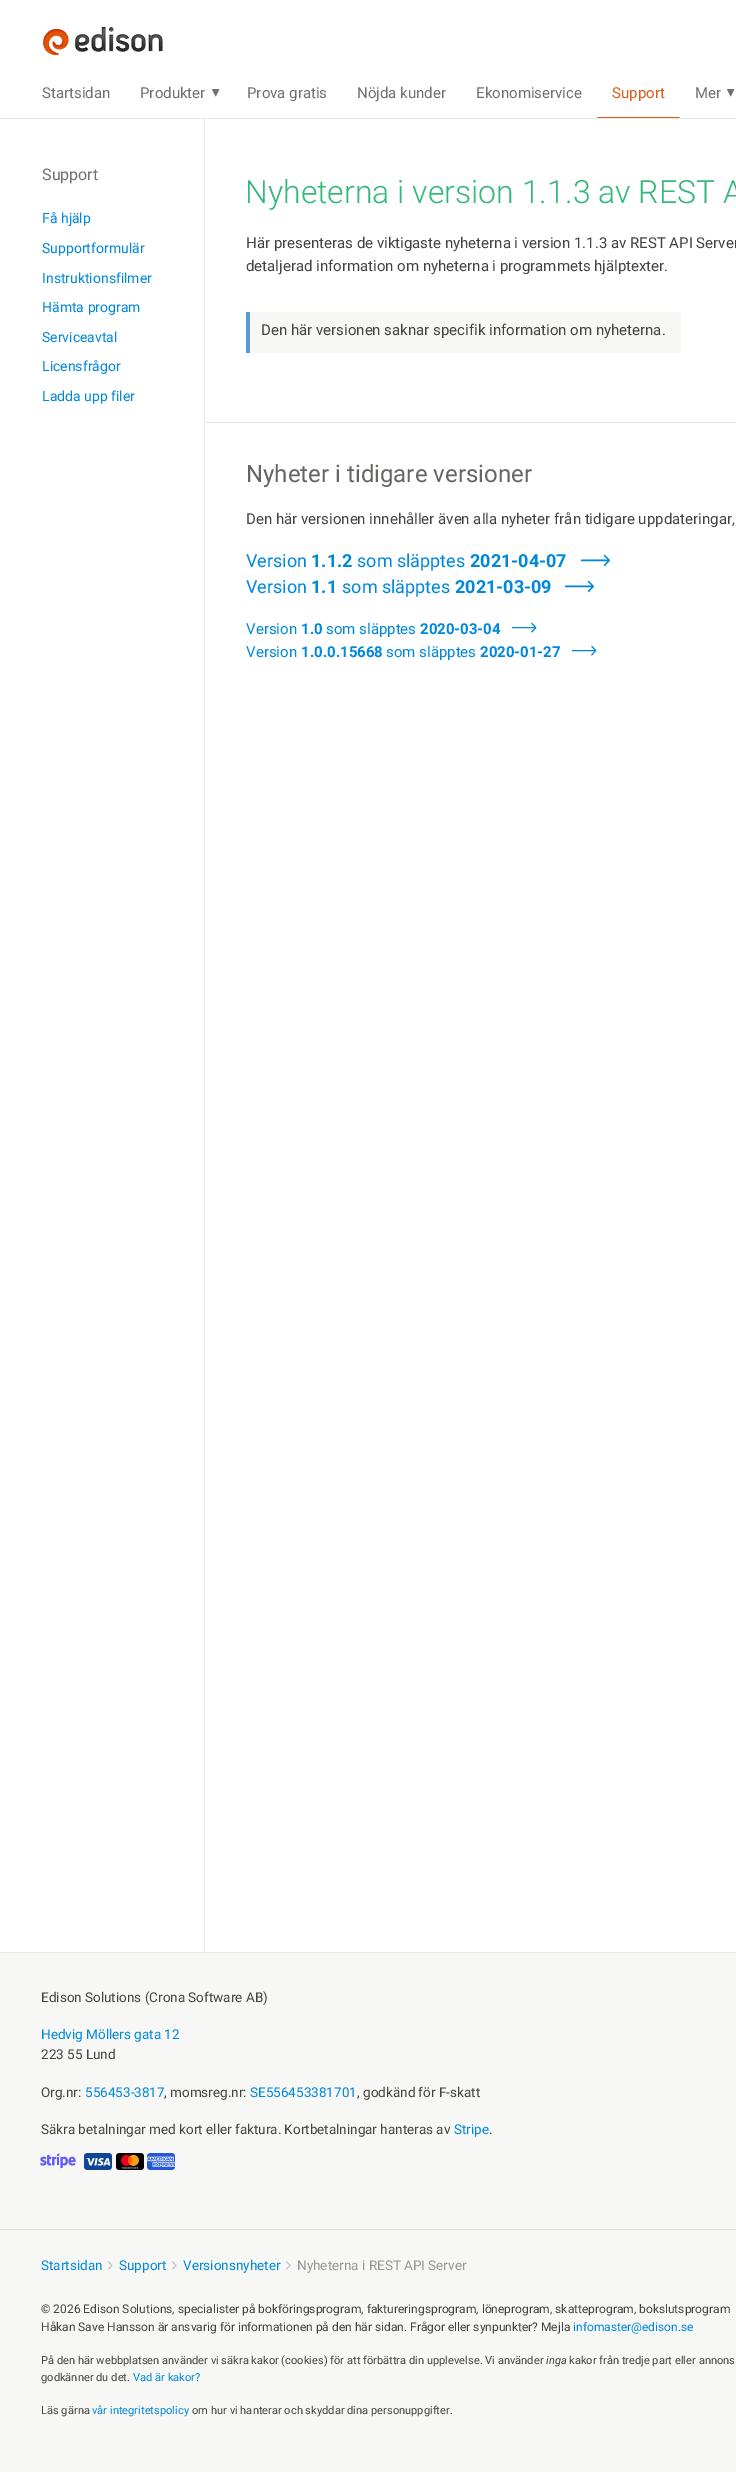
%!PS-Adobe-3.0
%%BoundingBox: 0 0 736 2472
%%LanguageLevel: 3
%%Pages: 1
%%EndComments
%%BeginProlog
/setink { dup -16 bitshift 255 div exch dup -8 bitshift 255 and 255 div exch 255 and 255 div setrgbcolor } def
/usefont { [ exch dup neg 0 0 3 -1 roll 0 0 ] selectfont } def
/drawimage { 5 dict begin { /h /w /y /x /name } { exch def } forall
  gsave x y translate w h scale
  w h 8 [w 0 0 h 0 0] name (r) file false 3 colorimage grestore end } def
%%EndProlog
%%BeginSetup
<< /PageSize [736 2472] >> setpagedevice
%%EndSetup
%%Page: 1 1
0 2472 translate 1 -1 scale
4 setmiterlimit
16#FFFFFF setink
0 0 736 2472 rectfill
16#E9E8E7 setink
0 118 736 1 rectfill
(img1.raw) 43 27 120 29 drawimage
/Roboto-Regular 15 usefont
16#71706D setink
42 98 moveto (Startsidan) show
140 98 moveto (Produkter) show
/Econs-Regular 15 usefont
212 98 moveto (▼) show
/Roboto-Regular 15 usefont
[
    [(Prova gratis) 247 98]
    [(Nöjda kunder) 357 98]
    [(Ekonomiservice) 476 98]
] { aload pop moveto show } forall
16#DB5C19 setink
680 118 moveto 597 118 lineto 598 117 lineto 679 117 lineto closepath fill
612 98 moveto (Support) show
16#71706D setink
695 98 moveto (Mer) show
/Econs-Regular 15 usefont
727 98 moveto (▼) show
/Roboto-Regular 16 usefont
42 180 moveto (Support) show
/Roboto-Regular 14 usefont
16#0088DD setink
[
    [(Få hjälp) 42 223]
    [(Supportformulär) 42 253]
    [(Instruktionsfilmer) 42 283]
    [(Hämta program) 42 312]
    [(Serviceavtal) 42 342]
    [(Licensfrågor) 42 371]
    [(Ladda upp filer) 42 401]
] { aload pop moveto show } forall
16#E9E8E7 setink
204 119 1 1833 rectfill
/Roboto-Light 32 usefont
16#33B87A setink
245 203 moveto (Nyheterna i version 1.1.3 av REST A) show
/Roboto-Regular 15 usefont
16#444342 setink
246 248 moveto (Här presenteras de viktigaste nyheterna i version 1.1.3 av REST API Server) show
246 271 moveto (detaljerad information om nyheterna i programmets hjälptexter.) show
16#F7F7F6 setink
250 312 431 41 rectfill
16#5B9BD4 setink
246 312 4 41 rectfill
16#444342 setink
261 335 moveto (Den här versionen saknar specifik information om nyheterna.) show
16#E9E8E7 setink
205 422 531 1 rectfill
/Roboto-Regular 24 usefont
16#666563 setink
246 482 moveto (Nyheter i tidigare versioner) show
/Roboto-Regular 15 usefont
16#444342 setink
246 524 moveto (Den här versionen innehåller även alla nyheter från tidigare uppdateringar,) show
/Roboto-Regular 18 usefont
16#0088DD setink
246 567 moveto (Version) show
/Roboto-Bold 18 usefont
311 567 moveto (1.1.2) show
/Roboto-Regular 18 usefont
357 567 moveto (som släpptes) show
/Roboto-Bold 18 usefont
470 567 moveto (2021-04-07) show
/Econs-Regular 19 usefont
581 568 moveto (→) show
/Roboto-Regular 18 usefont
246 593 moveto (Version) show
/Roboto-Bold 18 usefont
311 593 moveto (1.1) show
/Roboto-Regular 18 usefont
342 593 moveto (som släpptes) show
/Roboto-Bold 18 usefont
455 593 moveto (2021-03-09) show
/Econs-Regular 19 usefont
565 594 moveto (→) show
/Roboto-Regular 15 usefont
246 634 moveto (Version) show
/Roboto-Bold 15 usefont
301 634 moveto (1.0) show
/Roboto-Regular 15 usefont
326 634 moveto (som släpptes) show
/Roboto-Bold 15 usefont
420 634 moveto (2020-03-04) show
/Econs-Regular 16 usefont
512 634 moveto (→) show
/Roboto-Regular 15 usefont
246 657 moveto (Version) show
/Roboto-Bold 15 usefont
301 657 moveto (1.0.0.15668) show
/Roboto-Regular 15 usefont
386 657 moveto (som släpptes) show
/Roboto-Bold 15 usefont
480 657 moveto (2020-01-27) show
/Econs-Regular 16 usefont
572 657 moveto (→) show
16#F7F7F6 setink
0 1953 736 519 rectfill
16#E9E9E7 setink
0 1952 736 1 rectfill
/Roboto-Regular 13.5 usefont
16#444342 setink
41 2002 moveto (Edison Solutions \(Crona Software AB\)) show
16#0088DD setink
41 2039 moveto (Hedvig Möllers gata 12) show
16#444342 setink
41 2059 moveto (223 55 Lund) show
41 2097 moveto (Org.nr:) show
16#0088DD setink
85 2097 moveto (556453-3817) show
16#444342 setink
164 2097 moveto (, momsreg.nr:) show
16#0088DD setink
250 2097 moveto (SE556453381701) show
16#444342 setink
357 2097 moveto (, godkänd för F-skatt) show
41 2134 moveto (Säkra betalningar med kort eller faktura. Kortbetalningar hanteras av) show
16#0088DD setink
454 2134 moveto (Stripe) show
16#444342 setink
489 2134 moveto (.) show
(img2.raw) 40 2153 36 16 drawimage
(img3.raw) 84 2153 28 17 drawimage
(img4.raw) 116 2153 28 17 drawimage
(img5.raw) 147 2153 28 17 drawimage
16#E1E0DF setink
0 2229 736 1 rectfill
16#0088DD setink
41 2270 moveto (Startsidan) show
/Econs-Regular 14 usefont
16#C4C3C2 setink
108 2271 moveto (❭) show
/Roboto-Regular 13.5 usefont
16#0088DD setink
119 2270 moveto (Support) show
/Econs-Regular 14 usefont
16#C4C3C2 setink
172 2271 moveto (❭) show
/Roboto-Regular 13.5 usefont
16#0088DD setink
183 2270 moveto (Versionsnyheter) show
/Econs-Regular 14 usefont
16#C4C3C2 setink
286 2271 moveto (❭) show
/Roboto-Regular 13.5 usefont
16#989794 setink
297 2270 moveto (Nyheterna i REST API Server) show
/Roboto-Regular 12 usefont
16#444342 setink
41 2313 moveto (© 2026 Edison Solutions, specialister på bokföringsprogram, faktureringsprogram, löneprogram, skatteprogram, bokslutsprogram) show
41 2331 moveto (Håkan Save Hansson är ansvarig för informationen på den här sidan. Frågor eller synpunkter? Mejla) show
16#0088DD setink
573 2331 moveto (infomaster@edison.se) show
/Roboto-Regular 11.1 usefont
16#444342 setink
41 2364 moveto (På den här webbplatsen använder vi säkra kakor \(cookies\) för att förbättra din upplevelse. Vi använder) show
/Roboto-Italic 11.1 usefont
546 2364 moveto (inga) show
/Roboto-Regular 11.1 usefont
569 2364 moveto (kakor från tredje part eller annons) show
41 2381 moveto (godkänner du det.) show
16#0088DD setink
133 2381 moveto (Vad är kakor?) show
16#444342 setink
41 2414 moveto (Läs gärna) show
16#0088DD setink
92 2414 moveto (vår integritetspolicy) show
16#444342 setink
192 2414 moveto (om hur vi hanterar och skyddar dina personuppgifter.) show
showpage
%%EOF
